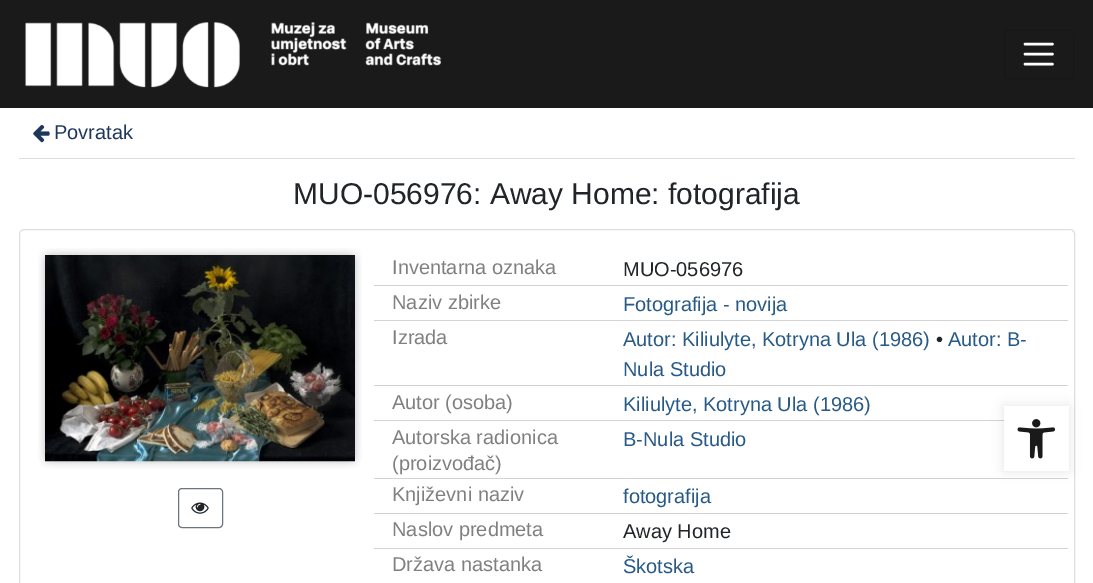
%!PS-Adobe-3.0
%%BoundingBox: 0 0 1093 583
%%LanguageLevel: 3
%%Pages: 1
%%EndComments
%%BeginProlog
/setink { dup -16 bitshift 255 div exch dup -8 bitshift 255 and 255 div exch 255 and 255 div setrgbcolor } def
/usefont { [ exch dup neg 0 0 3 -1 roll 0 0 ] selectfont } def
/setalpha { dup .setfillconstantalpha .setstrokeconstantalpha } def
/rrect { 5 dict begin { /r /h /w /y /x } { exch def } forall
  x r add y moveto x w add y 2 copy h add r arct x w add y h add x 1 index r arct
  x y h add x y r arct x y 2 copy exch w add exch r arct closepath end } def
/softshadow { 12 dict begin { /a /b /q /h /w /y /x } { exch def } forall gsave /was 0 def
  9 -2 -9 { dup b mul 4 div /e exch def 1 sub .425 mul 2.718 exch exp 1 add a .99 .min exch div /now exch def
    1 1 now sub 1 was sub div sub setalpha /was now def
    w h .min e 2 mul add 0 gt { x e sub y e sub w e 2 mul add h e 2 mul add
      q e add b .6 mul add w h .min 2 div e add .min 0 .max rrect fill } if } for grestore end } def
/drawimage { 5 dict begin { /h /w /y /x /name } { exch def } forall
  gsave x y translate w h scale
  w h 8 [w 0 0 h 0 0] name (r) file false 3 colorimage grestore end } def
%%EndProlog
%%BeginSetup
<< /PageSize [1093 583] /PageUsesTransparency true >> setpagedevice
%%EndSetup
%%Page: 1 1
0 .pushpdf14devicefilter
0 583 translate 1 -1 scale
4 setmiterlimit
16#FFFFFF setink
0 0 1093 583 rectfill
16#1A1A1A setink
0 0 1093 108 rectfill
(img1.raw) 25 22 417 66 drawimage
16#171717 setink
1004.5 29.5 69 49 4.5 rrect stroke
16#FFFFFF setink
2.5 setlinewidth
1 setlinecap
1025 44 moveto 1052.5 44 lineto 1025 54 moveto 1052.5 54 lineto 1025 64 moveto 1052.5 64 lineto stroke
16#DFDFDF setink
19 158 1056 1 rectfill
(img2.raw) 33 124 17 19 drawimage
/LiberationSans-Regular 20 usefont
16#1F365C setink
54 139 moveto (Povratak) show
/LiberationSans-Regular 30 usefont
16#212529 setink
293 204 moveto (MUO-056976: Away Home: fotografija) show
16#DFDFDF setink
1 setlinewidth
0 setlinecap
19.5 229.5 1055 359 4.5 rrect stroke
(img3.raw) 38 248 324 221 drawimage
16#6C757D setink
178.5 488.5 44 39 3.5 rrect stroke
(img4.raw) 191 502 18 12 drawimage
16#D3D3D3 setink
374 285 694 1 rectfill
/LiberationSans-Regular 20 usefont
16#808080 setink
392 274 moveto (Inventarna oznaka) show
16#212529 setink
623 276 moveto (MUO-056976) show
16#D3D3D3 setink
374 320 694 1 rectfill
16#808080 setink
392 309 moveto (Naziv zbirke) show
16#275A87 setink
623 311 moveto (Fotografija - novija) show
16#D3D3D3 setink
374 385 694 1 rectfill
16#808080 setink
392 344 moveto (Izrada) show
16#275A87 setink
623 346 moveto (Autor: Kiliulyte, Kotryna Ula \(1986\)) show
16#212529 setink
936 346 moveto (•) show
16#275A87 setink
948 346 moveto (Autor: B-) show
623 376 moveto (Nula Studio) show
16#D3D3D3 setink
374 420 630 1 rectfill
16#808080 setink
392 409 moveto (Autor \(osoba\)) show
16#275A87 setink
623 411 moveto (Kiliulyte, Kotryna Ula \(1986\)) show
16#D3D3D3 setink
374 478 694 1 rectfill
16#808080 setink
392 444 moveto (Autorska radionica) show
392 470 moveto (\(proizvođač\)) show
16#275A87 setink
623 446 moveto (B-Nula Studio) show
16#D3D3D3 setink
374 513 694 1 rectfill
16#808080 setink
392 501 moveto (Književni naziv) show
16#275A87 setink
623 503 moveto (fotografija) show
16#D3D3D3 setink
374 548 694 1 rectfill
16#808080 setink
392 536 moveto (Naslov predmeta) show
16#212529 setink
623 538 moveto (Away Home) show
16#808080 setink
392 571 moveto (Država nastanka) show
16#275A87 setink
623 573 moveto (Škotska) show
16#000000 setink
1004 406 65 65 0 6 0.1 softshadow
16#FFFFFF setink
1004 406 65 65 rectfill
(img5.raw) 1017 419 39 40 drawimage
.poppdf14devicefilter showpage
%%EOF
